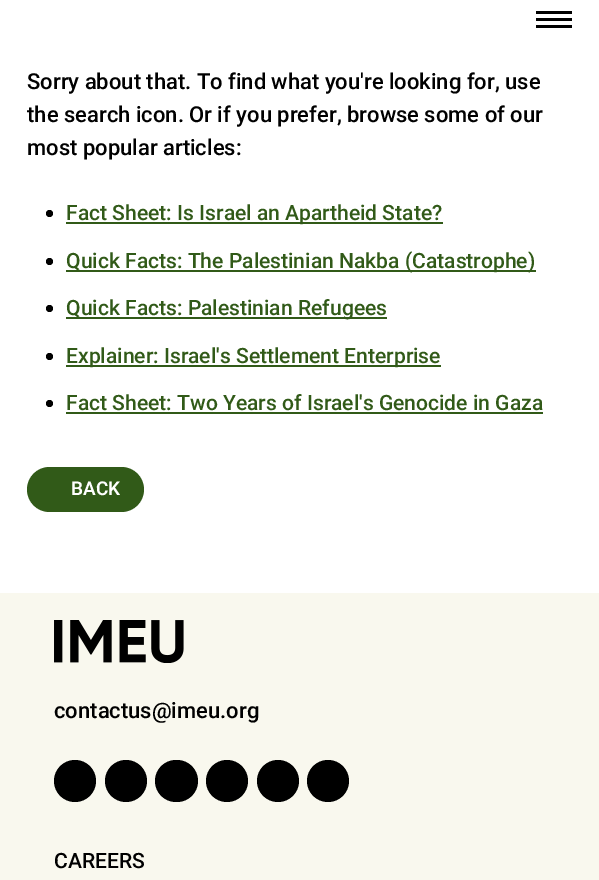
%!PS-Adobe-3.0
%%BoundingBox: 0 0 599 880
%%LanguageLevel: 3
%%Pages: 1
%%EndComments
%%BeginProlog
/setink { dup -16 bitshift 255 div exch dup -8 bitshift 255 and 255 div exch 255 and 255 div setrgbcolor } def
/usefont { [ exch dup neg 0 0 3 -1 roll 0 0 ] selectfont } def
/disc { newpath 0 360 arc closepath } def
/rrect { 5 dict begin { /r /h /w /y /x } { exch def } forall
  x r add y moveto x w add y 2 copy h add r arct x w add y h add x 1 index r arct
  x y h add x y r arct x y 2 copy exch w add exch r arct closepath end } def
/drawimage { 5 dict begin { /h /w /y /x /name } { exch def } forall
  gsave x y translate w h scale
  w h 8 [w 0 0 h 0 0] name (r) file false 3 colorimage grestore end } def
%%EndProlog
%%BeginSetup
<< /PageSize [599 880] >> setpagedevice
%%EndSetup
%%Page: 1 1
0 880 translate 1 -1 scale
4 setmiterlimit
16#F9F8EE setink
0 0 599 880 rectfill
[
    [0 0 599 593 16#FFFFFF]
    [536 18 36 3 16#000000]
    [536 11 36 3 16#000000]
    [536 25 36 3 16#000000]
] { aload pop setink rectfill } forall
/Roboto-Medium 22 usefont
[
    [(Sorry about that. To find what you're looking for, use) 27 89]
    [(the search icon. Or if you prefer, browse some of our) 27 122]
    [(most popular articles:) 27 155]
] { aload pop moveto show } forall
49.5 213.5 3.5 disc fill
16#315A18 setink
66 222 377 2 rectfill
/Roboto-Medium 21.1 usefont
66 220 moveto (Fact Sheet: Is Israel an Apartheid State?) show
16#000000 setink
49.5 261.5 3.5 disc fill
16#315A18 setink
66 270 470 2 rectfill
66 268 moveto (Quick Facts: The Palestinian Nakba \(Catastrophe\)) show
16#000000 setink
49.5 308.5 3.5 disc fill
16#315A18 setink
66 317 321 2 rectfill
66 315 moveto (Quick Facts: Palestinian Refugees) show
16#000000 setink
49.5 356.5 3.5 disc fill
16#315A18 setink
66 365 375 2 rectfill
66 363 moveto (Explainer: Israel's Settlement Enterprise) show
16#000000 setink
49.5 403.5 3.5 disc fill
16#315A18 setink
66 410 moveto (Fact Sheet: Two Years of Israel's Genocide in Gaza) show
66 412 477 2 rectfill
27 467 117 45 22.5 rrect fill
/Roboto-SemiBold 19 usefont
16#FFFFFF setink
71 495 moveto (BACK) show
(img1.raw) 54 620 130 43 drawimage
/Roboto-Medium 22 usefont
16#000000 setink
54 718 moveto (contactus@imeu.org) show
75 781 21 disc fill
126 781 21 disc fill
155 760 43 42 21 rrect fill
227 781 21 disc fill
278 781 21 disc fill
328 781 21 disc fill
/Roboto-Medium 21.1 usefont
54 868 moveto (CAREERS) show
showpage
%%EOF
